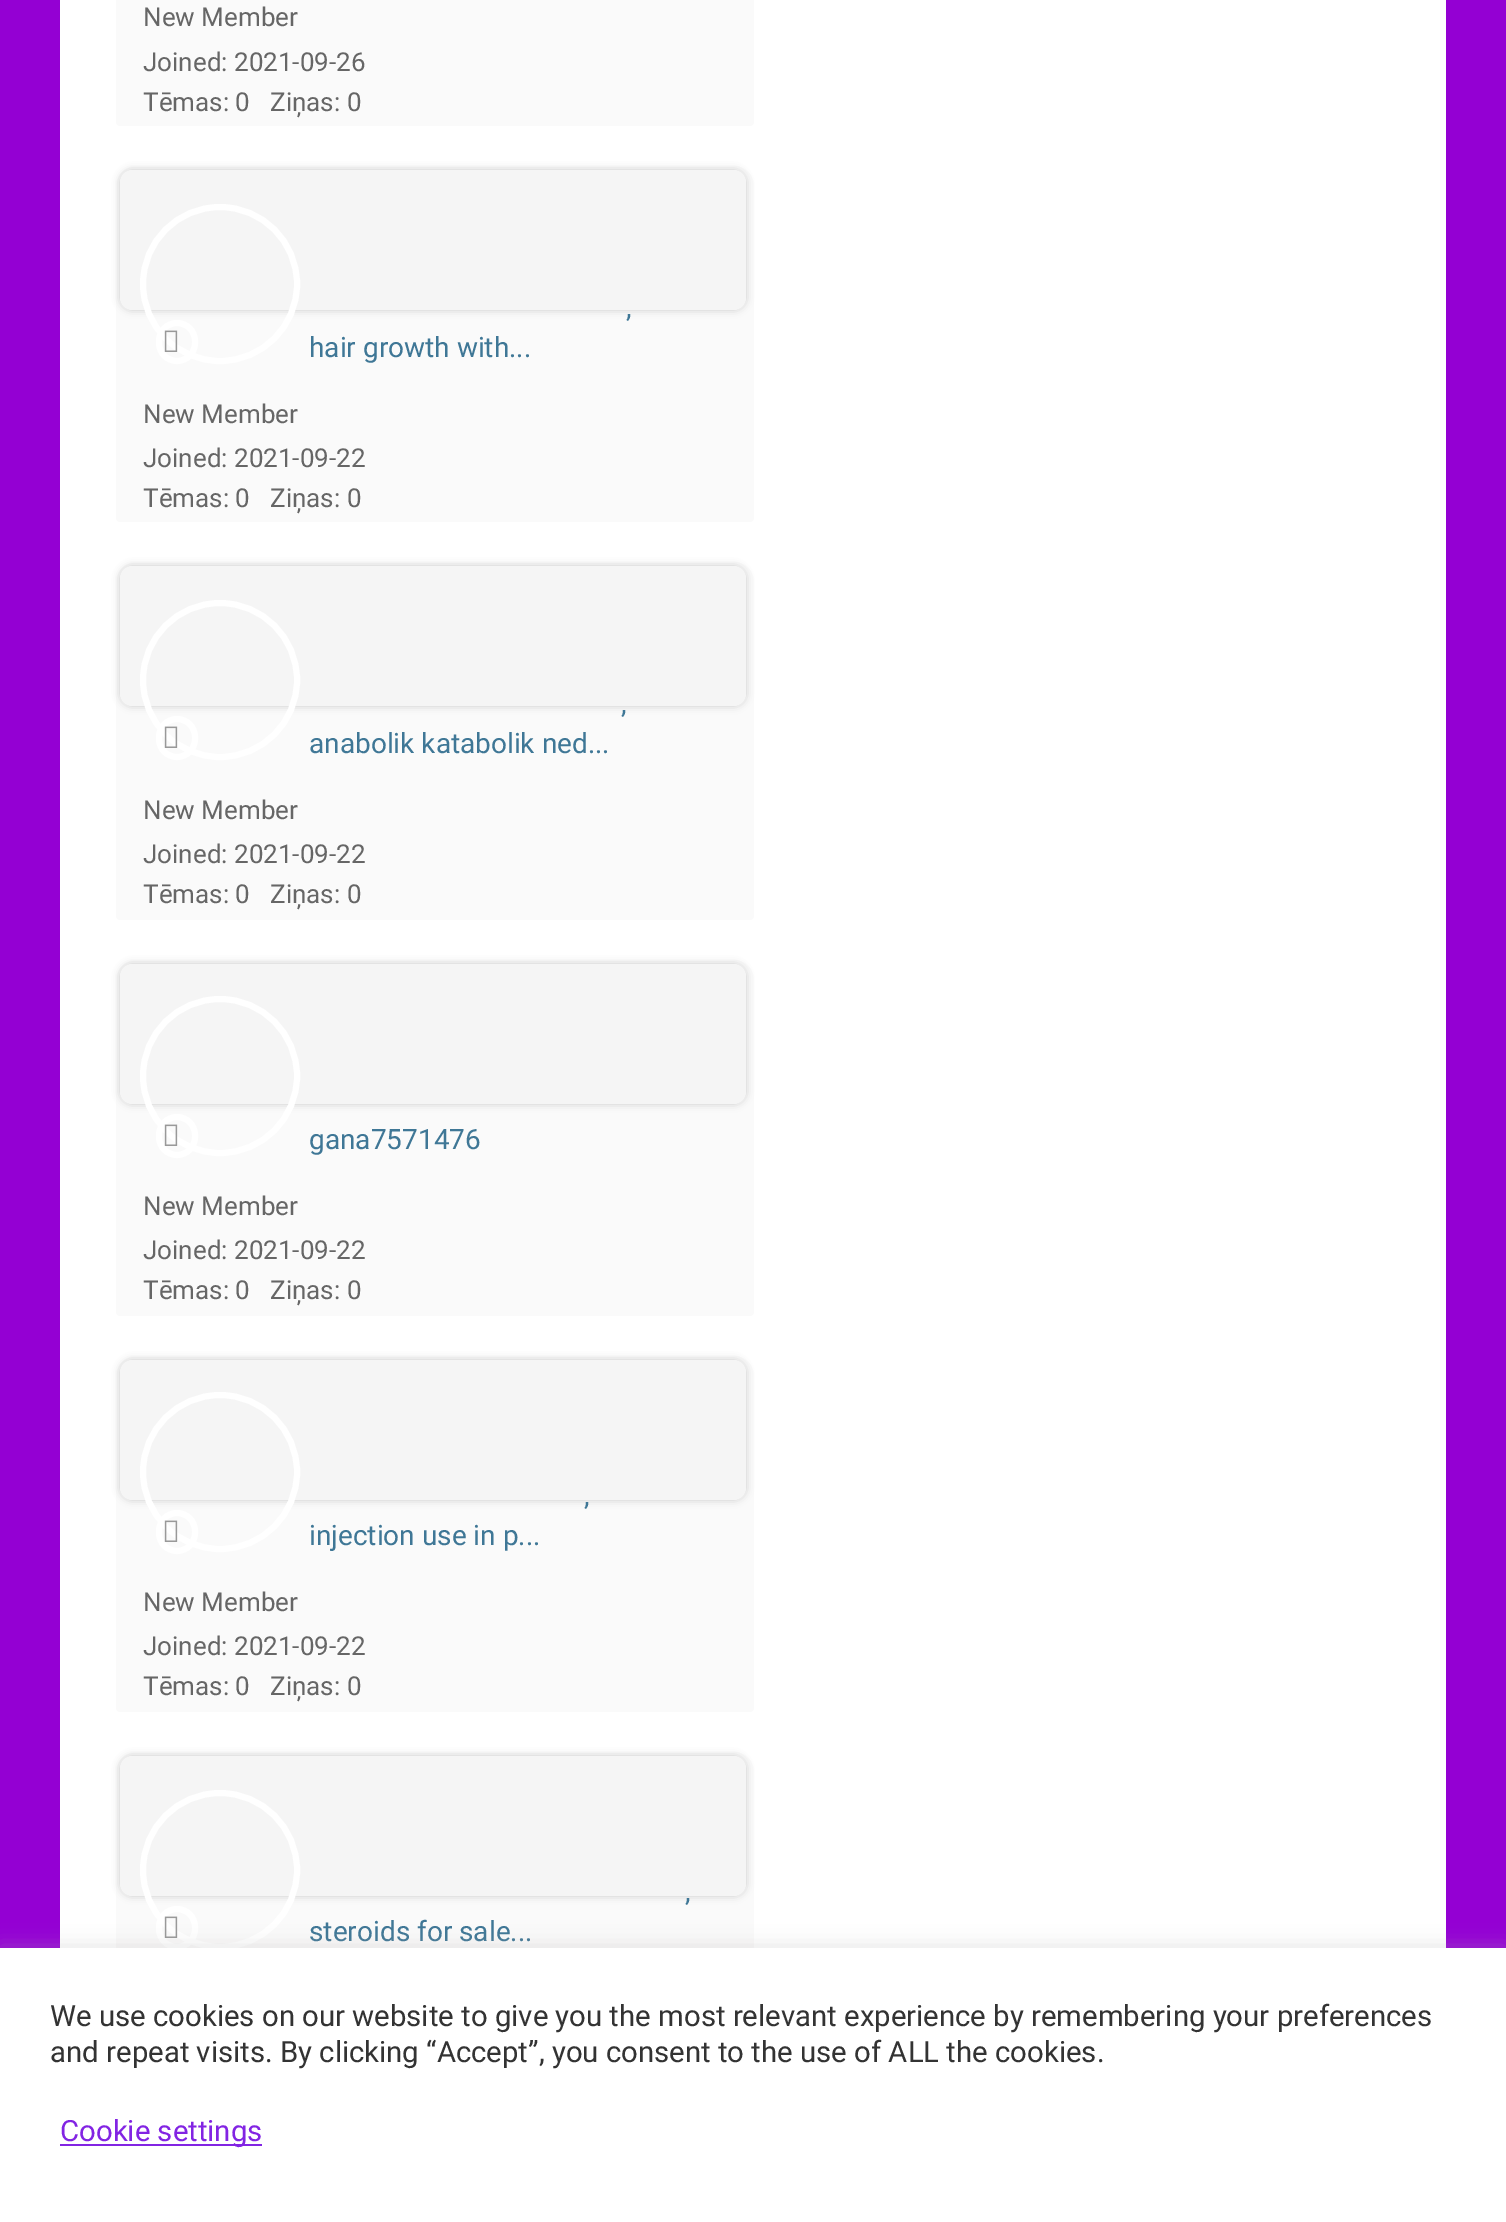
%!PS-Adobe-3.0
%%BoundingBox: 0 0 1506 2222
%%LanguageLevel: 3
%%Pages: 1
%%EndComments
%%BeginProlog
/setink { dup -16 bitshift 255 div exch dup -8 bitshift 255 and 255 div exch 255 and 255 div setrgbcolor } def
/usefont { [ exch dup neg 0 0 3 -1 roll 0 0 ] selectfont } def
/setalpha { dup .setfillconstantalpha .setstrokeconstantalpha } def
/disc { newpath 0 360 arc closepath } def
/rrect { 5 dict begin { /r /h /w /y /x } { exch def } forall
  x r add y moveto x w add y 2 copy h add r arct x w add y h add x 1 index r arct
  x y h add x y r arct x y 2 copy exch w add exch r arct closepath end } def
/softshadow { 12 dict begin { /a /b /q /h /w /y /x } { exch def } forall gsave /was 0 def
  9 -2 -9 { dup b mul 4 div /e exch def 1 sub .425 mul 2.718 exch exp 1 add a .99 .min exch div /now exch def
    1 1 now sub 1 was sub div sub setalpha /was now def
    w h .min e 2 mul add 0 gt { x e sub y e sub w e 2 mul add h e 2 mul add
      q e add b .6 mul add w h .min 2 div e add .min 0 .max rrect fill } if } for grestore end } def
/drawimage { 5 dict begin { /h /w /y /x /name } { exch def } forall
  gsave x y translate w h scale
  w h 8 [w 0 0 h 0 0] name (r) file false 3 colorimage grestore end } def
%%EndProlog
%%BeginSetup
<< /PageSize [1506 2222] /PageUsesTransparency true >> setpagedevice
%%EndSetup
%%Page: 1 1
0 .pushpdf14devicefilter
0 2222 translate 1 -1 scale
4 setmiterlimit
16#9400D3 setink
0 0 1506 2222 rectfill
16#FFFFFF setink
60 0 1386 1948 rectfill
16#FAFAFA setink
136 -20 moveto 734 -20 lineto 745 -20 754 -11 754 0 curveto 754 122 lineto 754 124 752 126 750 126 curveto 120 126 lineto 118 126 116 124 116 122 curveto 116 0 lineto 116 -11 125 -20 136 -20 curveto closepath fill
/Roboto-Regular 26 usefont
16#666666 setink
[
    [(New Member) 143 26]
    [(Joined: 2021-09-26) 143 71]
    [(Tēmas: 0) 143 111]
    [(Ziņas: 0) 270 111]
] { aload pop moveto show } forall
16#FAFAFA setink
136 166 moveto 734 166 lineto 745 166 754 175 754 186 curveto 754 518 lineto 754 520 752 522 750 522 curveto 120 522 lineto 118 522 116 520 116 518 curveto 116 186 lineto 116 175 125 166 136 166 curveto closepath fill
16#CCCCCC setink
120 170 626 140 12 4 1 softshadow
16#F5F5F5 setink
120 170 626 140 12 rrect fill
16#FFFFFF setink
6 setlinewidth
220 284 77 disc stroke
159 323 36 38 18 rrect stroke
(img1.raw) 164 330 14 22 drawimage
/Roboto-Regular 28 usefont
16#3F7796 setink
626 317 moveto (,) show
309 357 moveto (hair growth with...) show
/Roboto-Regular 26 usefont
16#666666 setink
[
    [(New Member) 143 423]
    [(Joined: 2021-09-22) 143 467]
    [(Tēmas: 0) 143 507]
    [(Ziņas: 0) 270 507]
] { aload pop moveto show } forall
16#FAFAFA setink
136 562 moveto 734 562 lineto 745 562 754 571 754 582 curveto 754 916 lineto 754 918 752 920 750 920 curveto 120 920 lineto 118 920 116 918 116 916 curveto 116 582 lineto 116 571 125 562 136 562 curveto closepath fill
16#CCCCCC setink
120 566 626 140 12 4 1 softshadow
16#F5F5F5 setink
120 566 626 140 12 rrect fill
16#FFFFFF setink
220 680 77 disc stroke
159 719 36 38 18 rrect stroke
(img1.raw) 164 726 14 22 drawimage
/Roboto-Regular 28 usefont
16#3F7796 setink
621 713 moveto (,) show
309 753 moveto (anabolik katabolik ned...) show
/Roboto-Regular 26 usefont
16#666666 setink
[
    [(New Member) 143 819]
    [(Joined: 2021-09-22) 143 863]
    [(Tēmas: 0) 143 903]
    [(Ziņas: 0) 270 903]
] { aload pop moveto show } forall
16#FAFAFA setink
136 960 moveto 734 960 lineto 745 960 754 969 754 980 curveto 754 1312 lineto 754 1314 752 1316 750 1316 curveto 120 1316 lineto 118 1316 116 1314 116 1312 curveto 116 980 lineto 116 969 125 960 136 960 curveto closepath fill
16#CCCCCC setink
120 964 626 140 12 4 1 softshadow
16#F5F5F5 setink
120 964 626 140 12 rrect fill
16#FFFFFF setink
220 1076 77 disc stroke
159 1117 36 38 18 rrect stroke
(img2.raw) 164 1124 14 22 drawimage
/Roboto-Regular 28 usefont
16#3F7796 setink
309 1149 moveto (gana7571476) show
/Roboto-Regular 26 usefont
16#666666 setink
[
    [(New Member) 143 1215]
    [(Joined: 2021-09-22) 143 1259]
    [(Tēmas: 0) 143 1299]
    [(Ziņas: 0) 270 1299]
] { aload pop moveto show } forall
16#FAFAFA setink
136 1356 moveto 734 1356 lineto 745 1356 754 1365 754 1376 curveto 754 1708 lineto 754 1710 752 1712 750 1712 curveto 120 1712 lineto 118 1712 116 1710 116 1708 curveto 116 1376 lineto 116 1365 125 1356 136 1356 curveto closepath fill
16#CCCCCC setink
120 1360 626 140 12 4 1 softshadow
16#F5F5F5 setink
120 1360 626 140 12 rrect fill
16#FFFFFF setink
220 1472 77 disc stroke
159 1513 36 38 18 rrect stroke
(img2.raw) 164 1520 14 22 drawimage
/Roboto-Regular 28 usefont
16#3F7796 setink
584 1505 moveto (,) show
309 1545 moveto (injection use in p...) show
/Roboto-Regular 26 usefont
16#666666 setink
[
    [(New Member) 143 1611]
    [(Joined: 2021-09-22) 143 1655]
    [(Tēmas: 0) 143 1695]
    [(Ziņas: 0) 270 1695]
] { aload pop moveto show } forall
16#FAFAFA setink
136 1752 moveto 734 1752 lineto 745 1752 754 1761 754 1772 curveto 754 2104 lineto 754 2106 752 2108 750 2108 curveto 120 2108 lineto 118 2108 116 2106 116 2104 curveto 116 1772 lineto 116 1761 125 1752 136 1752 curveto closepath fill
16#CCCCCC setink
120 1756 626 140 12 4 1 softshadow
16#F5F5F5 setink
120 1756 626 140 12 rrect fill
16#FFFFFF setink
220 1870 77 disc stroke
159 1909 36 38 18 rrect stroke
(img1.raw) 164 1916 14 22 drawimage
/Roboto-Regular 28 usefont
16#3F7796 setink
685 1901 moveto (,) show
309 1941 moveto (steroids for sale...) show
16#ACABAB setink
0 1946 1506 274 0 10 0.3 softshadow
16#FFFFFF setink
0 1948 1506 274 rectfill
/Roboto-Regular 29.35 usefont
16#333333 setink
50 2026 moveto (We use cookies on our website to give you the most relevant experience by remembering your preferences) show
50 2062 moveto (and repeat visits. By clicking “Accept”, you consent to the use of ALL the cookies.) show
16#8224E3 setink
60 2144 202 2 rectfill
60 2141 moveto (Cookie settings) show
.poppdf14devicefilter showpage
%%EOF
